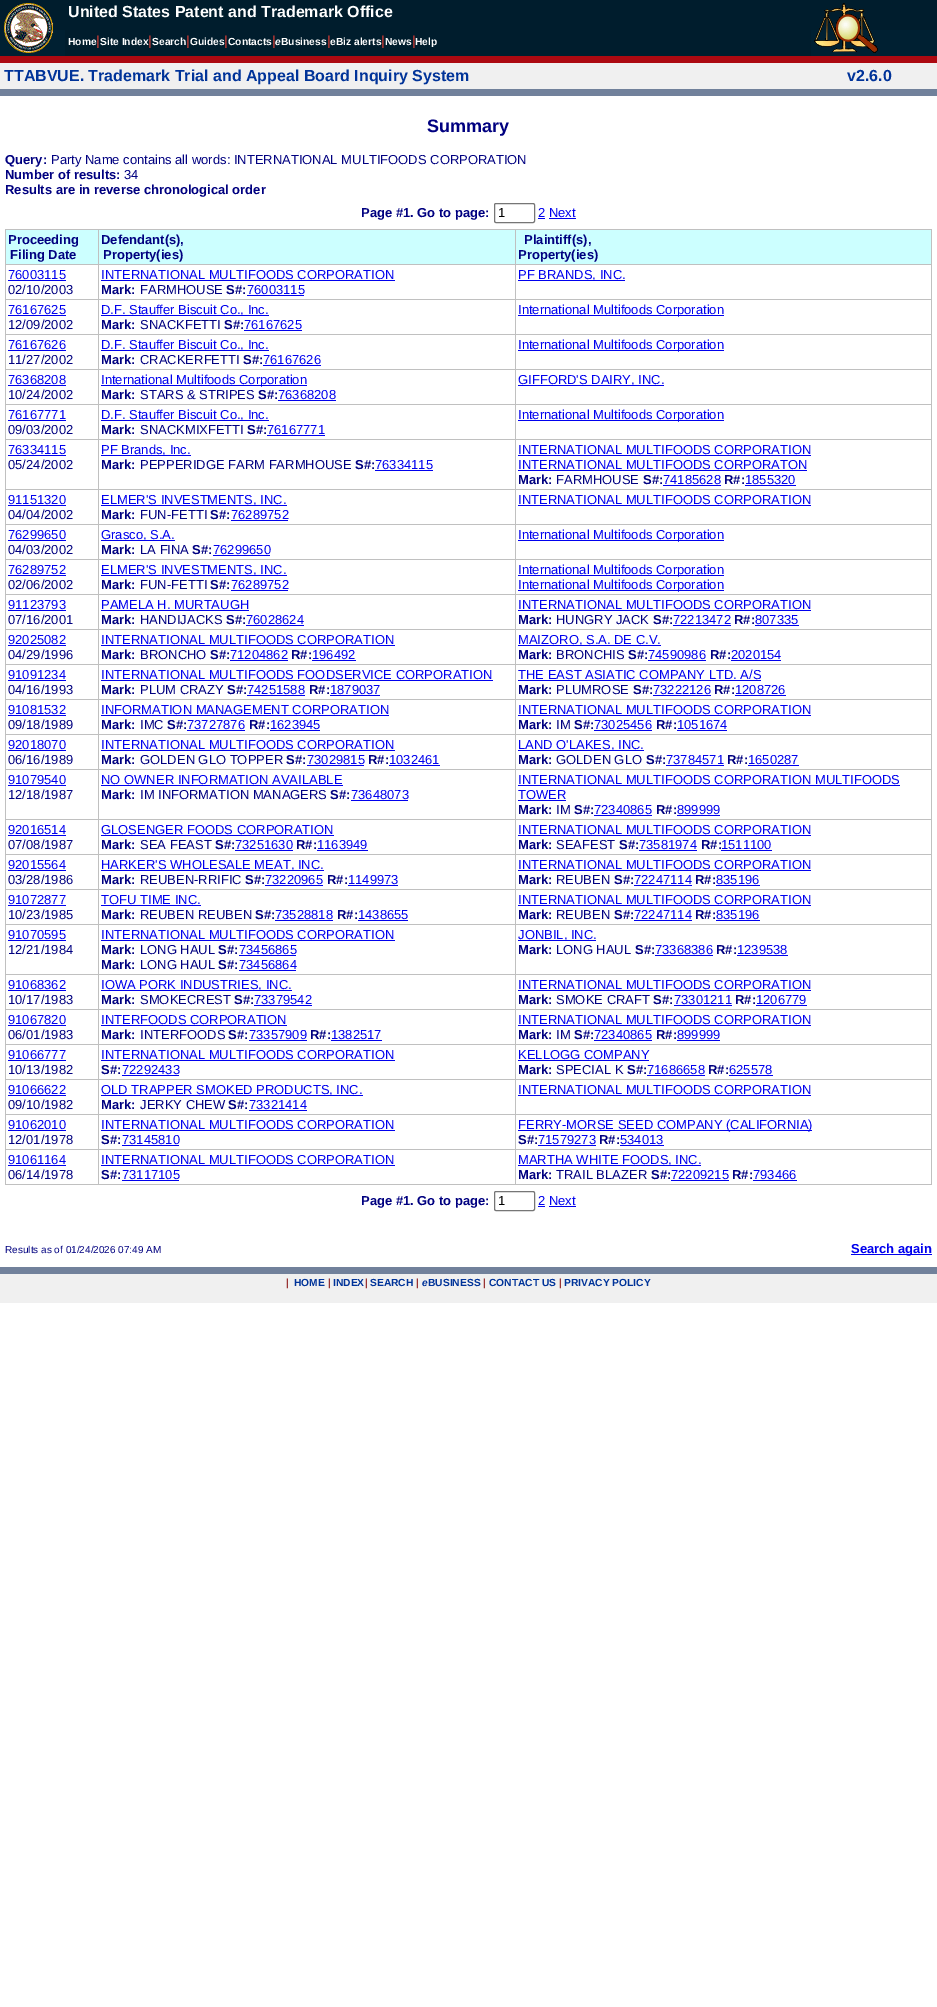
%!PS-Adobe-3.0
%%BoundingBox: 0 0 937 2007
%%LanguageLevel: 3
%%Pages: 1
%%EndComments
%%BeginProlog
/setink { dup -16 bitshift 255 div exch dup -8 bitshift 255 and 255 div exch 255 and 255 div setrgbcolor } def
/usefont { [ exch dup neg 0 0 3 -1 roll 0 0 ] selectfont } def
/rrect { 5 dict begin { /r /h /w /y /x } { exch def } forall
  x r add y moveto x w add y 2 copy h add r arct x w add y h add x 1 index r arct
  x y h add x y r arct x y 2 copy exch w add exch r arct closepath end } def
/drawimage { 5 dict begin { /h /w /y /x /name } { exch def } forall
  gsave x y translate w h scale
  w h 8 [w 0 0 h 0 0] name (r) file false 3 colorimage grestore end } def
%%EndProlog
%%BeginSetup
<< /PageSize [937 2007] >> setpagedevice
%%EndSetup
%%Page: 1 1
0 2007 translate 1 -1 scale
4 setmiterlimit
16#FFFFFF setink
0 0 937 2007 rectfill
16#001D2D setink
0 0 937 30 rectfill
16#002032 setink
0 30 937 26 rectfill
(img1.raw) 4 3 49 50 drawimage
/LiberationSans-Bold 16 usefont
16#FFFFFF setink
68 17 moveto (United States Patent and Trademark Office) show
(img2.raw) 814 3 64 50 drawimage
16#001D2D setink
65 30 746 26 rectfill
/LiberationSans-Bold 10.25 usefont
16#FFFFFF setink
68 45 moveto (Home) show
/LiberationSans-Bold 13 usefont
16#993333 setink
96 45 moveto (|) show
/LiberationSans-Bold 10.25 usefont
16#FFFFFF setink
100 45 moveto (Site Index) show
/LiberationSans-Bold 13 usefont
16#993333 setink
148 45 moveto (|) show
/LiberationSans-Bold 10.25 usefont
16#FFFFFF setink
152 45 moveto (Search) show
/LiberationSans-Bold 13 usefont
16#993333 setink
186 45 moveto (|) show
/LiberationSans-Bold 10.25 usefont
16#FFFFFF setink
190 45 moveto (Guides) show
/LiberationSans-Bold 13 usefont
16#993333 setink
224 45 moveto (|) show
/LiberationSans-Bold 10.25 usefont
16#FFFFFF setink
228 45 moveto (Contacts) show
/LiberationSans-Bold 13 usefont
16#993333 setink
272 45 moveto (|) show
/LiberationSans-BoldItalic 10.25 usefont
16#FFFFFF setink
275 45 moveto (e) show
/LiberationSans-Bold 10.25 usefont
281 45 moveto (Business) show
/LiberationSans-Bold 13 usefont
16#993333 setink
327 45 moveto (|) show
/LiberationSans-Bold 10.25 usefont
16#FFFFFF setink
330 45 moveto (eBiz alerts) show
/LiberationSans-Bold 13 usefont
16#993333 setink
381 45 moveto (|) show
/LiberationSans-Bold 10.25 usefont
16#FFFFFF setink
385 45 moveto (News) show
/LiberationSans-Bold 13 usefont
16#993333 setink
412 45 moveto (|) show
/LiberationSans-Bold 10.25 usefont
16#FFFFFF setink
415 45 moveto (Help) show
16#AC0911 setink
0 56 937 7 rectfill
16#F0F0F0 setink
0 63 937 26 rectfill
/LiberationSans-Bold 16 usefont
16#003399 setink
4 81 moveto (TTABVUE. Trademark Trial and Appeal Board Inquiry System) show
847 81 moveto (v2.6.0) show
16#71819B setink
0 89 937 7 rectfill
/LiberationSans-Bold 18 usefont
16#000080 setink
427 132 moveto (Summary) show
/LiberationSans-Bold 13 usefont
5 164 moveto (Query:) show
/LiberationSans-Regular 13 usefont
51 164 moveto (Party Name contains all words: INTERNATIONAL MULTIFOODS CORPORATION) show
/LiberationSans-Bold 13 usefont
5 179 moveto (Number of results:) show
/LiberationSans-Regular 13 usefont
124 179 moveto (34) show
/LiberationSans-Bold 13 usefont
5 194 moveto (Results are in reverse chronological order) show
361 217 moveto (Page #1. Go to page:) show
16#767676 setink
494.5 203.5 40 19 1.5 rrect stroke
/LiberationSans-Regular 13 usefont
16#000000 setink
498 217 moveto (1) show
16#0000EE setink
538 217 moveto (2 Next) show
[
    [538 218 7 1 16#0000EE]
    [549 218 27 1 16#0000EE]
    [5 229 927 956 16#C0C0C0]
    [6 230 92 34 16#CCFFFF]
] { aload pop setink rectfill } forall
/LiberationSans-Bold 13 usefont
16#000080 setink
8 244 moveto (Proceeding) show
10 259 moveto (Filing Date) show
16#CCFFFF setink
99 230 416 34 rectfill
16#000080 setink
101 244 moveto (Defendant\(s\),) show
103 259 moveto (Property\(ies\)) show
16#CCFFFF setink
516 230 415 34 rectfill
16#000080 setink
524 244 moveto (Plaintiff\(s\),) show
518 259 moveto (Property\(ies\)) show
16#FFFFFF setink
6 265 92 34 rectfill
/LiberationSans-Regular 13 usefont
16#0000EE setink
8 279 moveto (76003115) show
8 280 58 1 rectfill
16#000080 setink
8 294 moveto (02/10/2003) show
16#FFFFFF setink
99 265 416 34 rectfill
16#0000EE setink
101 279 moveto (INTERNATIONAL MULTIFOODS CORPORATION) show
101 280 294 1 rectfill
/LiberationSans-Bold 13 usefont
16#000080 setink
101 294 moveto (Mark:) show
/LiberationSans-Regular 13 usefont
140 294 moveto (FARMHOUSE) show
/LiberationSans-Bold 13 usefont
226 294 moveto (S#:) show
/LiberationSans-Regular 13 usefont
16#0000EE setink
247 294 moveto (76003115) show
[
    [247 295 57 1 16#0000EE]
    [516 265 415 34 16#FFFFFF]
    [518 280 107 1 16#0000EE]
] { aload pop setink rectfill } forall
518 279 moveto (PF BRANDS, INC.) show
16#FFFFFF setink
6 300 92 34 rectfill
16#0000EE setink
8 314 moveto (76167625) show
8 315 58 1 rectfill
16#000080 setink
8 329 moveto (12/09/2002) show
16#FFFFFF setink
99 300 416 34 rectfill
16#0000EE setink
101 315 168 1 rectfill
101 314 moveto (D.F. Stauffer Biscuit Co., Inc.) show
/LiberationSans-Bold 13 usefont
16#000080 setink
101 329 moveto (Mark:) show
/LiberationSans-Regular 13 usefont
140 329 moveto (SNACKFETTI) show
/LiberationSans-Bold 13 usefont
224 329 moveto (S#:) show
16#0000EE setink
244 330 58 1 rectfill
/LiberationSans-Regular 13 usefont
244 329 moveto (76167625) show
16#FFFFFF setink
516 300 415 34 rectfill
16#0000EE setink
518 315 206 1 rectfill
518 314 moveto (International Multifoods Corporation) show
16#FFFFFF setink
6 335 92 34 rectfill
16#0000EE setink
8 349 moveto (76167626) show
8 350 58 1 rectfill
16#000080 setink
8 364 moveto (11/27/2002) show
16#FFFFFF setink
99 335 416 34 rectfill
16#0000EE setink
101 350 168 1 rectfill
101 349 moveto (D.F. Stauffer Biscuit Co., Inc.) show
/LiberationSans-Bold 13 usefont
16#000080 setink
101 364 moveto (Mark:) show
/LiberationSans-Regular 13 usefont
140 364 moveto (CRACKERFETTI) show
/LiberationSans-Bold 13 usefont
243 364 moveto (S#:) show
/LiberationSans-Regular 13 usefont
16#0000EE setink
263 364 moveto (76167626) show
[
    [263 365 58 1 16#0000EE]
    [516 335 415 34 16#FFFFFF]
    [518 350 206 1 16#0000EE]
] { aload pop setink rectfill } forall
518 349 moveto (International Multifoods Corporation) show
16#FFFFFF setink
6 370 92 34 rectfill
16#0000EE setink
8 384 moveto (76368208) show
8 385 58 1 rectfill
16#000080 setink
8 399 moveto (10/24/2002) show
16#FFFFFF setink
99 370 416 34 rectfill
16#0000EE setink
101 385 206 1 rectfill
101 384 moveto (International Multifoods Corporation) show
/LiberationSans-Bold 13 usefont
16#000080 setink
101 399 moveto (Mark:) show
/LiberationSans-Regular 13 usefont
140 399 moveto (STARS & STRIPES) show
/LiberationSans-Bold 13 usefont
258 399 moveto (S#:) show
16#0000EE setink
278 400 58 1 rectfill
/LiberationSans-Regular 13 usefont
278 399 moveto (76368208) show
16#FFFFFF setink
516 370 415 34 rectfill
16#0000EE setink
518 385 146 1 rectfill
518 384 moveto (GIFFORD'S DAIRY, INC.) show
16#FFFFFF setink
6 405 92 34 rectfill
16#0000EE setink
8 419 moveto (76167771) show
8 420 58 1 rectfill
16#000080 setink
8 434 moveto (09/03/2002) show
16#FFFFFF setink
99 405 416 34 rectfill
16#0000EE setink
101 420 168 1 rectfill
101 419 moveto (D.F. Stauffer Biscuit Co., Inc.) show
/LiberationSans-Bold 13 usefont
16#000080 setink
101 434 moveto (Mark:) show
/LiberationSans-Regular 13 usefont
140 434 moveto (SNACKMIXFETTI) show
/LiberationSans-Bold 13 usefont
247 434 moveto (S#:) show
16#0000EE setink
267 435 58 1 rectfill
/LiberationSans-Regular 13 usefont
267 434 moveto (76167771) show
16#FFFFFF setink
516 405 415 34 rectfill
16#0000EE setink
518 420 206 1 rectfill
518 419 moveto (International Multifoods Corporation) show
16#FFFFFF setink
6 440 92 49 rectfill
16#0000EE setink
8 454 moveto (76334115) show
8 455 58 1 rectfill
16#000080 setink
8 469 moveto (05/24/2002) show
16#FFFFFF setink
99 440 416 49 rectfill
16#0000EE setink
101 455 90 1 rectfill
101 454 moveto (PF Brands, Inc.) show
/LiberationSans-Bold 13 usefont
16#000080 setink
101 469 moveto (Mark:) show
/LiberationSans-Regular 13 usefont
140 469 moveto (PEPPERIDGE FARM FARMHOUSE) show
/LiberationSans-Bold 13 usefont
355 469 moveto (S#:) show
/LiberationSans-Regular 13 usefont
16#0000EE setink
375 469 moveto (76334115) show
375 470 58 1 rectfill
16#FFFFFF setink
516 440 415 49 rectfill
16#0000EE setink
518 454 moveto (INTERNATIONAL MULTIFOODS CORPORATION) show
518 455 293 1 rectfill
518 469 moveto (INTERNATIONAL MULTIFOODS CORPORATON) show
518 470 289 1 rectfill
/LiberationSans-Bold 13 usefont
16#000080 setink
518 484 moveto (Mark:) show
/LiberationSans-Regular 13 usefont
556 484 moveto (FARMHOUSE) show
/LiberationSans-Bold 13 usefont
643 484 moveto (S#:) show
/LiberationSans-Regular 13 usefont
16#0000EE setink
663 484 moveto (74185628) show
663 485 58 1 rectfill
/LiberationSans-Bold 13 usefont
16#000080 setink
724 484 moveto (R#:) show
16#0000EE setink
745 485 51 1 rectfill
/LiberationSans-Regular 13 usefont
745 484 moveto (1855320) show
16#FFFFFF setink
6 490 92 34 rectfill
16#0000EE setink
8 504 moveto (91151320) show
8 505 58 1 rectfill
16#000080 setink
8 519 moveto (04/04/2002) show
16#FFFFFF setink
99 490 416 34 rectfill
16#0000EE setink
101 505 186 1 rectfill
101 504 moveto (ELMER'S INVESTMENTS, INC.) show
/LiberationSans-Bold 13 usefont
16#000080 setink
101 519 moveto (Mark:) show
/LiberationSans-Regular 13 usefont
140 519 moveto (FUN-FETTI) show
/LiberationSans-Bold 13 usefont
210 519 moveto (S#:) show
/LiberationSans-Regular 13 usefont
16#0000EE setink
231 519 moveto (76289752) show
231 520 57 1 rectfill
16#FFFFFF setink
516 490 415 34 rectfill
16#0000EE setink
518 504 moveto (INTERNATIONAL MULTIFOODS CORPORATION) show
518 505 293 1 rectfill
16#FFFFFF setink
6 525 92 34 rectfill
16#0000EE setink
8 539 moveto (76299650) show
8 540 58 1 rectfill
16#000080 setink
8 554 moveto (04/03/2002) show
16#FFFFFF setink
99 525 416 34 rectfill
16#0000EE setink
101 540 74 1 rectfill
101 539 moveto (Grasco, S.A.) show
/LiberationSans-Bold 13 usefont
16#000080 setink
101 554 moveto (Mark:) show
/LiberationSans-Regular 13 usefont
140 554 moveto (LA FINA) show
/LiberationSans-Bold 13 usefont
192 554 moveto (S#:) show
/LiberationSans-Regular 13 usefont
16#0000EE setink
213 554 moveto (76299650) show
[
    [213 555 57 1 16#0000EE]
    [516 525 415 34 16#FFFFFF]
    [518 540 206 1 16#0000EE]
] { aload pop setink rectfill } forall
518 539 moveto (International Multifoods Corporation) show
16#FFFFFF setink
6 560 92 34 rectfill
16#0000EE setink
8 574 moveto (76289752) show
8 575 58 1 rectfill
16#000080 setink
8 589 moveto (02/06/2002) show
16#FFFFFF setink
99 560 416 34 rectfill
16#0000EE setink
101 575 186 1 rectfill
101 574 moveto (ELMER'S INVESTMENTS, INC.) show
/LiberationSans-Bold 13 usefont
16#000080 setink
101 589 moveto (Mark:) show
/LiberationSans-Regular 13 usefont
140 589 moveto (FUN-FETTI) show
/LiberationSans-Bold 13 usefont
210 589 moveto (S#:) show
/LiberationSans-Regular 13 usefont
16#0000EE setink
231 589 moveto (76289752) show
[
    [231 590 57 1 16#0000EE]
    [516 560 415 34 16#FFFFFF]
    [518 575 206 1 16#0000EE]
] { aload pop setink rectfill } forall
518 574 moveto (International Multifoods Corporation) show
518 590 206 1 rectfill
518 589 moveto (International Multifoods Corporation) show
16#FFFFFF setink
6 595 92 34 rectfill
16#0000EE setink
8 609 moveto (91123793) show
8 610 58 1 rectfill
16#000080 setink
8 624 moveto (07/16/2001) show
16#FFFFFF setink
99 595 416 34 rectfill
16#0000EE setink
101 609 moveto (PAMELA H. MURTAUGH) show
101 610 148 1 rectfill
/LiberationSans-Bold 13 usefont
16#000080 setink
101 624 moveto (Mark:) show
/LiberationSans-Regular 13 usefont
140 624 moveto (HANDIJACKS) show
/LiberationSans-Bold 13 usefont
226 624 moveto (S#:) show
/LiberationSans-Regular 13 usefont
16#0000EE setink
246 624 moveto (76028624) show
246 625 58 1 rectfill
16#FFFFFF setink
516 595 415 34 rectfill
16#0000EE setink
518 609 moveto (INTERNATIONAL MULTIFOODS CORPORATION) show
518 610 293 1 rectfill
/LiberationSans-Bold 13 usefont
16#000080 setink
518 624 moveto (Mark:) show
/LiberationSans-Regular 13 usefont
556 624 moveto (HUNGRY JACK) show
/LiberationSans-Bold 13 usefont
653 624 moveto (S#:) show
/LiberationSans-Regular 13 usefont
16#0000EE setink
673 624 moveto (72213472) show
673 625 58 1 rectfill
/LiberationSans-Bold 13 usefont
16#000080 setink
734 624 moveto (R#:) show
16#0000EE setink
755 625 44 1 rectfill
/LiberationSans-Regular 13 usefont
755 624 moveto (807335) show
16#FFFFFF setink
6 630 92 34 rectfill
16#0000EE setink
8 644 moveto (92025082) show
8 645 58 1 rectfill
16#000080 setink
8 659 moveto (04/29/1996) show
16#FFFFFF setink
99 630 416 34 rectfill
16#0000EE setink
101 644 moveto (INTERNATIONAL MULTIFOODS CORPORATION) show
101 645 294 1 rectfill
/LiberationSans-Bold 13 usefont
16#000080 setink
101 659 moveto (Mark:) show
/LiberationSans-Regular 13 usefont
140 659 moveto (BRONCHO) show
/LiberationSans-Bold 13 usefont
210 659 moveto (S#:) show
/LiberationSans-Regular 13 usefont
16#0000EE setink
230 659 moveto (71204862) show
230 660 58 1 rectfill
/LiberationSans-Bold 13 usefont
16#000080 setink
291 659 moveto (R#:) show
16#0000EE setink
312 660 44 1 rectfill
/LiberationSans-Regular 13 usefont
312 659 moveto (196492) show
16#FFFFFF setink
516 630 415 34 rectfill
16#0000EE setink
518 645 143 1 rectfill
518 644 moveto (MAIZORO, S.A. DE C.V.) show
/LiberationSans-Bold 13 usefont
16#000080 setink
518 659 moveto (Mark:) show
/LiberationSans-Regular 13 usefont
556 659 moveto (BRONCHIS) show
/LiberationSans-Bold 13 usefont
628 659 moveto (S#:) show
16#0000EE setink
648 660 58 1 rectfill
/LiberationSans-Regular 13 usefont
648 659 moveto (74590986) show
/LiberationSans-Bold 13 usefont
16#000080 setink
710 659 moveto (R#:) show
/LiberationSans-Regular 13 usefont
16#0000EE setink
731 659 moveto (2020154) show
731 660 50 1 rectfill
16#FFFFFF setink
6 665 92 34 rectfill
16#0000EE setink
8 679 moveto (91091234) show
8 680 58 1 rectfill
16#000080 setink
8 694 moveto (04/16/1993) show
16#FFFFFF setink
99 665 416 34 rectfill
16#0000EE setink
101 679 moveto (INTERNATIONAL MULTIFOODS FOODSERVICE CORPORATION) show
101 680 392 1 rectfill
/LiberationSans-Bold 13 usefont
16#000080 setink
101 694 moveto (Mark:) show
/LiberationSans-Regular 13 usefont
140 694 moveto (PLUM CRAZY) show
/LiberationSans-Bold 13 usefont
227 694 moveto (S#:) show
/LiberationSans-Regular 13 usefont
16#0000EE setink
247 694 moveto (74251588) show
247 695 58 1 rectfill
/LiberationSans-Bold 13 usefont
16#000080 setink
309 694 moveto (R#:) show
/LiberationSans-Regular 13 usefont
16#0000EE setink
330 694 moveto (1879037) show
330 695 50 1 rectfill
16#FFFFFF setink
516 665 415 34 rectfill
16#0000EE setink
518 679 moveto (THE EAST ASIATIC COMPANY LTD. A/S) show
518 680 243 1 rectfill
/LiberationSans-Bold 13 usefont
16#000080 setink
518 694 moveto (Mark:) show
/LiberationSans-Regular 13 usefont
556 694 moveto (PLUMROSE) show
/LiberationSans-Bold 13 usefont
633 694 moveto (S#:) show
/LiberationSans-Regular 13 usefont
16#0000EE setink
653 694 moveto (73222126) show
653 695 58 1 rectfill
/LiberationSans-Bold 13 usefont
16#000080 setink
714 694 moveto (R#:) show
/LiberationSans-Regular 13 usefont
16#0000EE setink
735 694 moveto (1208726) show
735 695 51 1 rectfill
16#FFFFFF setink
6 700 92 34 rectfill
16#0000EE setink
8 714 moveto (91081532) show
8 715 58 1 rectfill
16#000080 setink
8 729 moveto (09/18/1989) show
16#FFFFFF setink
99 700 416 34 rectfill
16#0000EE setink
101 714 moveto (INFORMATION MANAGEMENT CORPORATION) show
101 715 288 1 rectfill
/LiberationSans-Bold 13 usefont
16#000080 setink
101 729 moveto (Mark:) show
/LiberationSans-Regular 13 usefont
140 729 moveto (IMC) show
/LiberationSans-Bold 13 usefont
167 729 moveto (S#:) show
16#0000EE setink
187 730 58 1 rectfill
/LiberationSans-Regular 13 usefont
187 729 moveto (73727876) show
/LiberationSans-Bold 13 usefont
16#000080 setink
249 729 moveto (R#:) show
/LiberationSans-Regular 13 usefont
16#0000EE setink
270 729 moveto (1623945) show
270 730 50 1 rectfill
16#FFFFFF setink
516 700 415 34 rectfill
16#0000EE setink
518 714 moveto (INTERNATIONAL MULTIFOODS CORPORATION) show
518 715 293 1 rectfill
/LiberationSans-Bold 13 usefont
16#000080 setink
518 729 moveto (Mark:) show
/LiberationSans-Regular 13 usefont
556 729 moveto (IM) show
/LiberationSans-Bold 13 usefont
574 729 moveto (S#:) show
/LiberationSans-Regular 13 usefont
16#0000EE setink
594 729 moveto (73025456) show
594 730 58 1 rectfill
/LiberationSans-Bold 13 usefont
16#000080 setink
656 729 moveto (R#:) show
/LiberationSans-Regular 13 usefont
16#0000EE setink
677 729 moveto (1051674) show
677 730 50 1 rectfill
16#FFFFFF setink
6 735 92 34 rectfill
16#0000EE setink
8 749 moveto (92018070) show
8 750 58 1 rectfill
16#000080 setink
8 764 moveto (06/16/1989) show
16#FFFFFF setink
99 735 416 34 rectfill
16#0000EE setink
101 749 moveto (INTERNATIONAL MULTIFOODS CORPORATION) show
101 750 294 1 rectfill
/LiberationSans-Bold 13 usefont
16#000080 setink
101 764 moveto (Mark:) show
/LiberationSans-Regular 13 usefont
140 764 moveto (GOLDEN GLO TOPPER) show
/LiberationSans-Bold 13 usefont
286 764 moveto (S#:) show
/LiberationSans-Regular 13 usefont
16#0000EE setink
307 764 moveto (73029815) show
307 765 57 1 rectfill
/LiberationSans-Bold 13 usefont
16#000080 setink
368 764 moveto (R#:) show
/LiberationSans-Regular 13 usefont
16#0000EE setink
389 764 moveto (1032461) show
[
    [389 765 51 1 16#0000EE]
    [516 735 415 34 16#FFFFFF]
    [518 750 126 1 16#0000EE]
] { aload pop setink rectfill } forall
518 749 moveto (LAND O'LAKES, INC.) show
/LiberationSans-Bold 13 usefont
16#000080 setink
518 764 moveto (Mark:) show
/LiberationSans-Regular 13 usefont
556 764 moveto (GOLDEN GLO) show
/LiberationSans-Bold 13 usefont
646 764 moveto (S#:) show
/LiberationSans-Regular 13 usefont
16#0000EE setink
666 764 moveto (73784571) show
666 765 58 1 rectfill
/LiberationSans-Bold 13 usefont
16#000080 setink
727 764 moveto (R#:) show
/LiberationSans-Regular 13 usefont
16#0000EE setink
748 764 moveto (1650287) show
748 765 51 1 rectfill
16#FFFFFF setink
6 770 92 49 rectfill
16#0000EE setink
8 784 moveto (91079540) show
8 785 58 1 rectfill
16#000080 setink
8 799 moveto (12/18/1987) show
16#FFFFFF setink
99 770 416 49 rectfill
16#0000EE setink
101 784 moveto (NO OWNER INFORMATION AVAILABLE) show
101 785 242 1 rectfill
/LiberationSans-Bold 13 usefont
16#000080 setink
101 799 moveto (Mark:) show
/LiberationSans-Regular 13 usefont
140 799 moveto (IM INFORMATION MANAGERS) show
/LiberationSans-Bold 13 usefont
330 799 moveto (S#:) show
/LiberationSans-Regular 13 usefont
16#0000EE setink
351 799 moveto (73648073) show
351 800 57 1 rectfill
16#FFFFFF setink
516 770 415 49 rectfill
16#0000EE setink
518 784 moveto (INTERNATIONAL MULTIFOODS CORPORATION MULTIFOODS) show
518 785 382 1 rectfill
518 799 moveto (TOWER) show
518 800 48 1 rectfill
/LiberationSans-Bold 13 usefont
16#000080 setink
518 814 moveto (Mark:) show
/LiberationSans-Regular 13 usefont
556 814 moveto (IM) show
/LiberationSans-Bold 13 usefont
574 814 moveto (S#:) show
/LiberationSans-Regular 13 usefont
16#0000EE setink
594 814 moveto (72340865) show
594 815 58 1 rectfill
/LiberationSans-Bold 13 usefont
16#000080 setink
656 814 moveto (R#:) show
/LiberationSans-Regular 13 usefont
16#0000EE setink
677 814 moveto (899999) show
677 815 43 1 rectfill
16#FFFFFF setink
6 820 92 34 rectfill
16#0000EE setink
8 834 moveto (92016514) show
8 835 58 1 rectfill
16#000080 setink
8 849 moveto (07/08/1987) show
16#FFFFFF setink
99 820 416 34 rectfill
16#0000EE setink
101 834 moveto (GLOSENGER FOODS CORPORATION) show
101 835 233 1 rectfill
/LiberationSans-Bold 13 usefont
16#000080 setink
101 849 moveto (Mark:) show
/LiberationSans-Regular 13 usefont
140 849 moveto (SEA FEAST) show
/LiberationSans-Bold 13 usefont
215 849 moveto (S#:) show
/LiberationSans-Regular 13 usefont
16#0000EE setink
235 849 moveto (73251630) show
235 850 58 1 rectfill
/LiberationSans-Bold 13 usefont
16#000080 setink
296 849 moveto (R#:) show
16#0000EE setink
317 850 51 1 rectfill
/LiberationSans-Regular 13 usefont
317 849 moveto (1163949) show
16#FFFFFF setink
516 820 415 34 rectfill
16#0000EE setink
518 834 moveto (INTERNATIONAL MULTIFOODS CORPORATION) show
518 835 293 1 rectfill
/LiberationSans-Bold 13 usefont
16#000080 setink
518 849 moveto (Mark:) show
/LiberationSans-Regular 13 usefont
556 849 moveto (SEAFEST) show
/LiberationSans-Bold 13 usefont
619 849 moveto (S#:) show
/LiberationSans-Regular 13 usefont
16#0000EE setink
639 849 moveto (73581974) show
639 850 58 1 rectfill
/LiberationSans-Bold 13 usefont
16#000080 setink
701 849 moveto (R#:) show
16#0000EE setink
721 850 51 1 rectfill
/LiberationSans-Regular 13 usefont
721 849 moveto (1511100) show
16#FFFFFF setink
6 855 92 34 rectfill
16#0000EE setink
8 869 moveto (92015564) show
8 870 58 1 rectfill
16#000080 setink
8 884 moveto (03/28/1986) show
16#FFFFFF setink
99 855 416 34 rectfill
16#0000EE setink
101 870 223 1 rectfill
101 869 moveto (HARKER'S WHOLESALE MEAT, INC.) show
/LiberationSans-Bold 13 usefont
16#000080 setink
101 884 moveto (Mark:) show
/LiberationSans-Regular 13 usefont
140 884 moveto (REUBEN-RRIFIC) show
/LiberationSans-Bold 13 usefont
245 884 moveto (S#:) show
16#0000EE setink
265 885 58 1 rectfill
/LiberationSans-Regular 13 usefont
265 884 moveto (73220965) show
/LiberationSans-Bold 13 usefont
16#000080 setink
327 884 moveto (R#:) show
/LiberationSans-Regular 13 usefont
16#0000EE setink
348 884 moveto (1149973) show
348 885 50 1 rectfill
16#FFFFFF setink
516 855 415 34 rectfill
16#0000EE setink
518 869 moveto (INTERNATIONAL MULTIFOODS CORPORATION) show
518 870 293 1 rectfill
/LiberationSans-Bold 13 usefont
16#000080 setink
518 884 moveto (Mark:) show
/LiberationSans-Regular 13 usefont
556 884 moveto (REUBEN) show
/LiberationSans-Bold 13 usefont
614 884 moveto (S#:) show
16#0000EE setink
634 885 58 1 rectfill
/LiberationSans-Regular 13 usefont
634 884 moveto (72247114) show
/LiberationSans-Bold 13 usefont
16#000080 setink
695 884 moveto (R#:) show
16#0000EE setink
716 885 44 1 rectfill
/LiberationSans-Regular 13 usefont
716 884 moveto (835196) show
16#FFFFFF setink
6 890 92 34 rectfill
16#0000EE setink
8 904 moveto (91072877) show
8 905 58 1 rectfill
16#000080 setink
8 919 moveto (10/23/1985) show
16#FFFFFF setink
99 890 416 34 rectfill
16#0000EE setink
101 904 moveto (TOFU TIME INC.) show
101 905 100 1 rectfill
/LiberationSans-Bold 13 usefont
16#000080 setink
101 919 moveto (Mark:) show
/LiberationSans-Regular 13 usefont
140 919 moveto (REUBEN REUBEN) show
/LiberationSans-Bold 13 usefont
255 919 moveto (S#:) show
16#0000EE setink
275 920 58 1 rectfill
/LiberationSans-Regular 13 usefont
275 919 moveto (73528818) show
/LiberationSans-Bold 13 usefont
16#000080 setink
337 919 moveto (R#:) show
/LiberationSans-Regular 13 usefont
16#0000EE setink
358 919 moveto (1438655) show
358 920 50 1 rectfill
16#FFFFFF setink
516 890 415 34 rectfill
16#0000EE setink
518 904 moveto (INTERNATIONAL MULTIFOODS CORPORATION) show
518 905 293 1 rectfill
/LiberationSans-Bold 13 usefont
16#000080 setink
518 919 moveto (Mark:) show
/LiberationSans-Regular 13 usefont
556 919 moveto (REUBEN) show
/LiberationSans-Bold 13 usefont
614 919 moveto (S#:) show
16#0000EE setink
634 920 58 1 rectfill
/LiberationSans-Regular 13 usefont
634 919 moveto (72247114) show
/LiberationSans-Bold 13 usefont
16#000080 setink
695 919 moveto (R#:) show
16#0000EE setink
716 920 44 1 rectfill
/LiberationSans-Regular 13 usefont
716 919 moveto (835196) show
16#FFFFFF setink
6 925 92 49 rectfill
16#0000EE setink
8 939 moveto (91070595) show
8 940 58 1 rectfill
16#000080 setink
8 954 moveto (12/21/1984) show
16#FFFFFF setink
99 925 416 49 rectfill
16#0000EE setink
101 939 moveto (INTERNATIONAL MULTIFOODS CORPORATION) show
101 940 294 1 rectfill
/LiberationSans-Bold 13 usefont
16#000080 setink
101 954 moveto (Mark:) show
/LiberationSans-Regular 13 usefont
140 954 moveto (LONG HAUL) show
/LiberationSans-Bold 13 usefont
218 954 moveto (S#:) show
/LiberationSans-Regular 13 usefont
16#0000EE setink
239 954 moveto (73456865) show
239 955 57 1 rectfill
/LiberationSans-Bold 13 usefont
16#000080 setink
101 969 moveto (Mark:) show
/LiberationSans-Regular 13 usefont
140 969 moveto (LONG HAUL) show
/LiberationSans-Bold 13 usefont
218 969 moveto (S#:) show
/LiberationSans-Regular 13 usefont
16#0000EE setink
239 969 moveto (73456864) show
[
    [239 970 57 1 16#0000EE]
    [516 925 415 49 16#FFFFFF]
    [518 940 78 1 16#0000EE]
] { aload pop setink rectfill } forall
518 939 moveto (JONBIL, INC.) show
/LiberationSans-Bold 13 usefont
16#000080 setink
518 954 moveto (Mark:) show
/LiberationSans-Regular 13 usefont
556 954 moveto (LONG HAUL) show
/LiberationSans-Bold 13 usefont
635 954 moveto (S#:) show
/LiberationSans-Regular 13 usefont
16#0000EE setink
655 954 moveto (73368386) show
655 955 58 1 rectfill
/LiberationSans-Bold 13 usefont
16#000080 setink
716 954 moveto (R#:) show
16#0000EE setink
737 955 51 1 rectfill
/LiberationSans-Regular 13 usefont
737 954 moveto (1239538) show
16#FFFFFF setink
6 975 92 34 rectfill
16#0000EE setink
8 989 moveto (91068362) show
8 990 58 1 rectfill
16#000080 setink
8 1004 moveto (10/17/1983) show
16#FFFFFF setink
99 975 416 34 rectfill
16#0000EE setink
101 990 191 1 rectfill
101 989 moveto (IOWA PORK INDUSTRIES, INC.) show
/LiberationSans-Bold 13 usefont
16#000080 setink
101 1004 moveto (Mark:) show
/LiberationSans-Regular 13 usefont
140 1004 moveto (SMOKECREST) show
/LiberationSans-Bold 13 usefont
234 1004 moveto (S#:) show
16#0000EE setink
254 1005 58 1 rectfill
/LiberationSans-Regular 13 usefont
254 1004 moveto (73379542) show
16#FFFFFF setink
516 975 415 34 rectfill
16#0000EE setink
518 989 moveto (INTERNATIONAL MULTIFOODS CORPORATION) show
518 990 293 1 rectfill
/LiberationSans-Bold 13 usefont
16#000080 setink
518 1004 moveto (Mark:) show
/LiberationSans-Regular 13 usefont
556 1004 moveto (SMOKE CRAFT) show
/LiberationSans-Bold 13 usefont
653 1004 moveto (S#:) show
/LiberationSans-Regular 13 usefont
16#0000EE setink
674 1004 moveto (73301211) show
674 1005 58 1 rectfill
/LiberationSans-Bold 13 usefont
16#000080 setink
735 1004 moveto (R#:) show
/LiberationSans-Regular 13 usefont
16#0000EE setink
756 1004 moveto (1206779) show
756 1005 51 1 rectfill
16#FFFFFF setink
6 1010 92 34 rectfill
16#0000EE setink
8 1024 moveto (91067820) show
8 1025 58 1 rectfill
16#000080 setink
8 1039 moveto (06/01/1983) show
16#FFFFFF setink
99 1010 416 34 rectfill
16#0000EE setink
101 1024 moveto (INTERFOODS CORPORATION) show
101 1025 186 1 rectfill
/LiberationSans-Bold 13 usefont
16#000080 setink
101 1039 moveto (Mark:) show
/LiberationSans-Regular 13 usefont
140 1039 moveto (INTERFOODS) show
/LiberationSans-Bold 13 usefont
228 1039 moveto (S#:) show
/LiberationSans-Regular 13 usefont
16#0000EE setink
249 1039 moveto (73357909) show
249 1040 58 1 rectfill
/LiberationSans-Bold 13 usefont
16#000080 setink
310 1039 moveto (R#:) show
/LiberationSans-Regular 13 usefont
16#0000EE setink
331 1039 moveto (1382517) show
331 1040 51 1 rectfill
16#FFFFFF setink
516 1010 415 34 rectfill
16#0000EE setink
518 1024 moveto (INTERNATIONAL MULTIFOODS CORPORATION) show
518 1025 293 1 rectfill
/LiberationSans-Bold 13 usefont
16#000080 setink
518 1039 moveto (Mark:) show
/LiberationSans-Regular 13 usefont
556 1039 moveto (IM) show
/LiberationSans-Bold 13 usefont
574 1039 moveto (S#:) show
/LiberationSans-Regular 13 usefont
16#0000EE setink
594 1039 moveto (72340865) show
594 1040 58 1 rectfill
/LiberationSans-Bold 13 usefont
16#000080 setink
656 1039 moveto (R#:) show
/LiberationSans-Regular 13 usefont
16#0000EE setink
677 1039 moveto (899999) show
677 1040 43 1 rectfill
16#FFFFFF setink
6 1045 92 34 rectfill
16#0000EE setink
8 1059 moveto (91066777) show
8 1060 58 1 rectfill
16#000080 setink
8 1074 moveto (10/13/1982) show
16#FFFFFF setink
99 1045 416 34 rectfill
16#0000EE setink
101 1059 moveto (INTERNATIONAL MULTIFOODS CORPORATION) show
101 1060 294 1 rectfill
/LiberationSans-Bold 13 usefont
16#000080 setink
101 1074 moveto (S#:) show
/LiberationSans-Regular 13 usefont
16#0000EE setink
122 1074 moveto (72292433) show
122 1075 57 1 rectfill
16#FFFFFF setink
516 1045 415 34 rectfill
16#0000EE setink
518 1059 moveto (KELLOGG COMPANY) show
518 1060 131 1 rectfill
/LiberationSans-Bold 13 usefont
16#000080 setink
518 1074 moveto (Mark:) show
/LiberationSans-Regular 13 usefont
556 1074 moveto (SPECIAL K) show
/LiberationSans-Bold 13 usefont
627 1074 moveto (S#:) show
/LiberationSans-Regular 13 usefont
16#0000EE setink
647 1074 moveto (71686658) show
647 1075 58 1 rectfill
/LiberationSans-Bold 13 usefont
16#000080 setink
708 1074 moveto (R#:) show
16#0000EE setink
729 1075 44 1 rectfill
/LiberationSans-Regular 13 usefont
729 1074 moveto (625578) show
16#FFFFFF setink
6 1080 92 34 rectfill
16#0000EE setink
8 1094 moveto (91066622) show
8 1095 58 1 rectfill
16#000080 setink
8 1109 moveto (09/10/1982) show
16#FFFFFF setink
99 1080 416 34 rectfill
16#0000EE setink
101 1095 262 1 rectfill
101 1094 moveto (OLD TRAPPER SMOKED PRODUCTS, INC.) show
/LiberationSans-Bold 13 usefont
16#000080 setink
101 1109 moveto (Mark:) show
/LiberationSans-Regular 13 usefont
140 1109 moveto (JERKY CHEW) show
/LiberationSans-Bold 13 usefont
228 1109 moveto (S#:) show
/LiberationSans-Regular 13 usefont
16#0000EE setink
249 1109 moveto (73321414) show
249 1110 58 1 rectfill
16#FFFFFF setink
516 1080 415 34 rectfill
16#0000EE setink
518 1094 moveto (INTERNATIONAL MULTIFOODS CORPORATION) show
518 1095 293 1 rectfill
16#FFFFFF setink
6 1115 92 34 rectfill
16#0000EE setink
8 1129 moveto (91062010) show
8 1130 58 1 rectfill
16#000080 setink
8 1144 moveto (12/01/1978) show
16#FFFFFF setink
99 1115 416 34 rectfill
16#0000EE setink
101 1129 moveto (INTERNATIONAL MULTIFOODS CORPORATION) show
101 1130 294 1 rectfill
/LiberationSans-Bold 13 usefont
16#000080 setink
101 1144 moveto (S#:) show
/LiberationSans-Regular 13 usefont
16#0000EE setink
122 1144 moveto (73145810) show
[
    [122 1145 57 1 16#0000EE]
    [516 1115 415 34 16#FFFFFF]
    [518 1130 294 1 16#0000EE]
] { aload pop setink rectfill } forall
518 1129 moveto (FERRY-MORSE SEED COMPANY \(CALIFORNIA\)) show
/LiberationSans-Bold 13 usefont
16#000080 setink
518 1144 moveto (S#:) show
/LiberationSans-Regular 13 usefont
16#0000EE setink
538 1144 moveto (71579273) show
538 1145 58 1 rectfill
/LiberationSans-Bold 13 usefont
16#000080 setink
599 1144 moveto (R#:) show
16#0000EE setink
620 1145 44 1 rectfill
/LiberationSans-Regular 13 usefont
620 1144 moveto (534013) show
16#FFFFFF setink
6 1150 92 34 rectfill
16#0000EE setink
8 1164 moveto (91061164) show
8 1165 58 1 rectfill
16#000080 setink
8 1179 moveto (06/14/1978) show
16#FFFFFF setink
99 1150 416 34 rectfill
16#0000EE setink
101 1164 moveto (INTERNATIONAL MULTIFOODS CORPORATION) show
101 1165 294 1 rectfill
/LiberationSans-Bold 13 usefont
16#000080 setink
101 1179 moveto (S#:) show
/LiberationSans-Regular 13 usefont
16#0000EE setink
122 1179 moveto (73117105) show
[
    [122 1180 57 1 16#0000EE]
    [516 1150 415 34 16#FFFFFF]
    [518 1165 183 1 16#0000EE]
] { aload pop setink rectfill } forall
518 1164 moveto (MARTHA WHITE FOODS, INC.) show
/LiberationSans-Bold 13 usefont
16#000080 setink
518 1179 moveto (Mark:) show
/LiberationSans-Regular 13 usefont
556 1179 moveto (TRAIL BLAZER) show
/LiberationSans-Bold 13 usefont
651 1179 moveto (S#:) show
/LiberationSans-Regular 13 usefont
16#0000EE setink
671 1179 moveto (72209215) show
671 1180 58 1 rectfill
/LiberationSans-Bold 13 usefont
16#000080 setink
732 1179 moveto (R#:) show
/LiberationSans-Regular 13 usefont
16#0000EE setink
753 1179 moveto (793466) show
753 1180 44 1 rectfill
/LiberationSans-Bold 13 usefont
16#000080 setink
361 1205 moveto (Page #1. Go to page:) show
16#767676 setink
494.5 1191.5 40 19 1.5 rrect stroke
/LiberationSans-Regular 13 usefont
16#000000 setink
498 1205 moveto (1) show
16#0000EE setink
538 1205 moveto (2 Next) show
538 1206 7 1 rectfill
549 1206 27 1 rectfill
/LiberationSans-Regular 10 usefont
16#000080 setink
5 1253 moveto (Results as of 01/24/2026 07:49 AM) show
16#0000EE setink
851 1254 81 1 rectfill
/LiberationSans-Bold 13 usefont
851 1253 moveto (Search again) show
16#71819B setink
0 1267 937 7 rectfill
16#F0F0F0 setink
0 1274 937 29 rectfill
/LiberationSans-Bold 10.25 usefont
16#993333 setink
286 1286 moveto (|) show
16#003399 setink
294 1286 moveto (HOME) show
16#993333 setink
328 1286 moveto (|) show
16#003399 setink
333 1286 moveto (INDEX) show
16#993333 setink
365 1286 moveto (|) show
16#003399 setink
370 1286 moveto (SEARCH) show
16#993333 setink
416 1286 moveto (|) show
/LiberationSans-BoldItalic 10.25 usefont
16#003399 setink
422 1286 moveto (e) show
/LiberationSans-Bold 10.25 usefont
428 1286 moveto (BUSINESS) show
16#993333 setink
483 1286 moveto (|) show
16#003399 setink
489 1286 moveto (CONTACT US) show
16#993333 setink
559 1286 moveto (|) show
16#003399 setink
564 1286 moveto (PRIVACY POLICY) show
showpage
%%EOF
